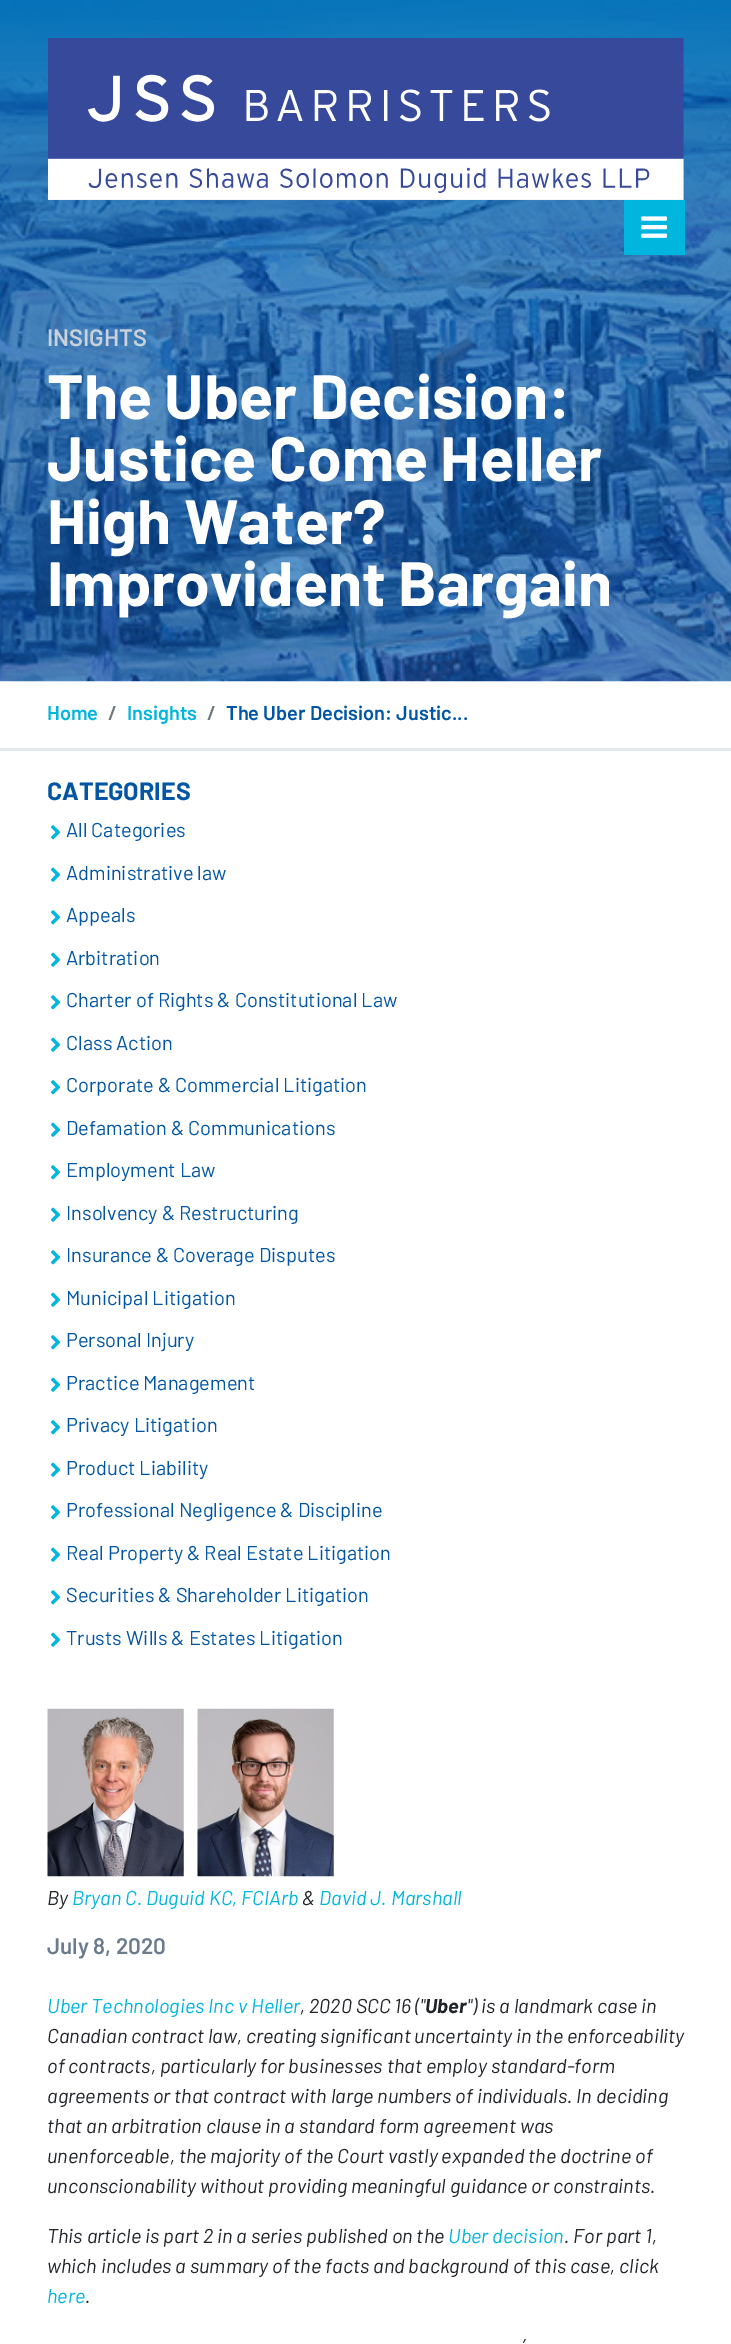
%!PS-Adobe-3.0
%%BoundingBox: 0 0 731 2344
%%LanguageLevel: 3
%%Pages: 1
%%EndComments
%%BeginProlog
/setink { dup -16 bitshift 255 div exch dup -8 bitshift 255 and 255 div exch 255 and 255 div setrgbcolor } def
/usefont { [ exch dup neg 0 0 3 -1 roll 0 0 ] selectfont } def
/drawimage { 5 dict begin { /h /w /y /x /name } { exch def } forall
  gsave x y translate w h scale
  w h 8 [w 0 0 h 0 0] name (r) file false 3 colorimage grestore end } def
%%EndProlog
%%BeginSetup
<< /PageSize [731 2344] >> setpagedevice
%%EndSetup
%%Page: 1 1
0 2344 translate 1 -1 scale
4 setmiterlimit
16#FFFFFF setink
0 0 731 2344 rectfill
(img1.raw) 0 0 731 682 drawimage
(img2.raw) 48 38 636 162 drawimage
16#00B5DE setink
624 200 61 55 rectfill
(img3.raw) 641 216 26 22 drawimage
/Barlow-SemiBold 23.75 usefont
16#C9D1DB setink
47 346 moveto (INSIGHTS) show
/Barlow-Bold 62.5 usefont
16#FFFFFF setink
[
    [(The Uber Decision:) 47 419]
    [(Justice Come Heller) 47 481]
    [(High Water?) 47 544]
    [(Improvident Bargain) 47 606]
] { aload pop moveto show } forall
16#E2EAEF setink
0 748 731 3 rectfill
/Barlow-SemiBold 20 usefont
16#00B5DE setink
47 720 moveto (Home) show
16#6C757D setink
108 720 moveto (/) show
16#00B5DE setink
127 720 moveto (Insights) show
16#6C757D setink
207 720 moveto (/) show
16#0055A5 setink
226 720 moveto (The Uber Decision: Justic...) show
/Barlow-Bold 25 usefont
47 800 moveto (CATEGORIES) show
(img4.raw) 51 825 10 15 drawimage
/Barlow-Regular 20 usefont
66 837 moveto (All Categories) show
(img5.raw) 51 867 10 15 drawimage
66 880 moveto (Administrative law) show
(img4.raw) 51 910 10 15 drawimage
66 922 moveto (Appeals) show
(img5.raw) 51 952 10 15 drawimage
66 965 moveto (Arbitration) show
(img4.raw) 51 995 10 15 drawimage
66 1007 moveto (Charter of Rights & Constitutional Law) show
(img5.raw) 51 1037 10 15 drawimage
66 1050 moveto (Class Action) show
(img4.raw) 51 1080 10 15 drawimage
66 1092 moveto (Corporate & Commercial Litigation) show
(img5.raw) 51 1122 10 15 drawimage
66 1135 moveto (Defamation & Communications) show
(img4.raw) 51 1165 10 15 drawimage
66 1177 moveto (Employment Law) show
(img5.raw) 51 1207 10 15 drawimage
66 1220 moveto (Insolvency & Restructuring) show
(img4.raw) 51 1250 10 15 drawimage
66 1262 moveto (Insurance & Coverage Disputes) show
(img5.raw) 51 1292 10 15 drawimage
66 1305 moveto (Municipal Litigation) show
(img4.raw) 51 1335 10 15 drawimage
66 1347 moveto (Personal Injury) show
(img5.raw) 51 1377 10 15 drawimage
66 1390 moveto (Practice Management) show
(img4.raw) 51 1420 10 15 drawimage
66 1432 moveto (Privacy Litigation) show
(img5.raw) 51 1462 10 15 drawimage
66 1475 moveto (Product Liability) show
(img4.raw) 51 1505 10 15 drawimage
66 1517 moveto (Professional Negligence & Discipline) show
(img5.raw) 51 1547 10 15 drawimage
66 1560 moveto (Real Property & Real Estate Litigation) show
(img4.raw) 51 1590 10 15 drawimage
66 1602 moveto (Securities & Shareholder Litigation) show
(img5.raw) 51 1632 10 15 drawimage
66 1645 moveto (Trusts Wills & Estates Litigation) show
(img6.raw) 47 1708 137 169 drawimage
(img7.raw) 197 1708 137 169 drawimage
/Barlow-Italic 20 usefont
16#212529 setink
47 1905 moveto (By) show
16#00B5DE setink
72 1905 moveto (Bryan C. Duguid KC, FCIArb) show
16#212529 setink
302 1905 moveto (&) show
16#00B5DE setink
319 1905 moveto (David J. Marshall) show
/Barlow-SemiBold 22.5 usefont
16#6A7B8E setink
47 1954 moveto (July 8, 2020) show
/Barlow-Italic 20 usefont
16#00B5DE setink
47 2013 moveto (Uber Technologies Inc v Heller) show
16#212529 setink
300 2013 moveto (, 2020 SCC 16 \(") show
/Barlow-BoldItalic 20 usefont
425 2013 moveto (Uber) show
/Barlow-Italic 20 usefont
[
    [("\) is a landmark case in) 467 2013]
    [(Canadian contract law, creating significant uncertainty in the enforceability) 47 2043]
    [(of contracts, particularly for businesses that employ standard-form) 47 2073]
    [(agreements or that contract with large numbers of individuals. In deciding) 47 2103]
    [(that an arbitration clause in a standard form agreement was) 47 2133]
    [(unenforceable, the majority of the Court vastly expanded the doctrine of) 47 2163]
    [(unconscionability without providing meaningful guidance or constraints.) 47 2193]
    [(This article is part 2 in a series published on the) 47 2243]
] { aload pop moveto show } forall
16#00B5DE setink
448 2243 moveto (Uber decision) show
16#212529 setink
564 2243 moveto (. For part 1,) show
47 2273 moveto (which includes a summary of the facts and background of this case, click) show
16#00B5DE setink
47 2303 moveto (here) show
16#212529 setink
85 2303 moveto (.) show
522 2353 moveto (’) show
showpage
%%EOF
